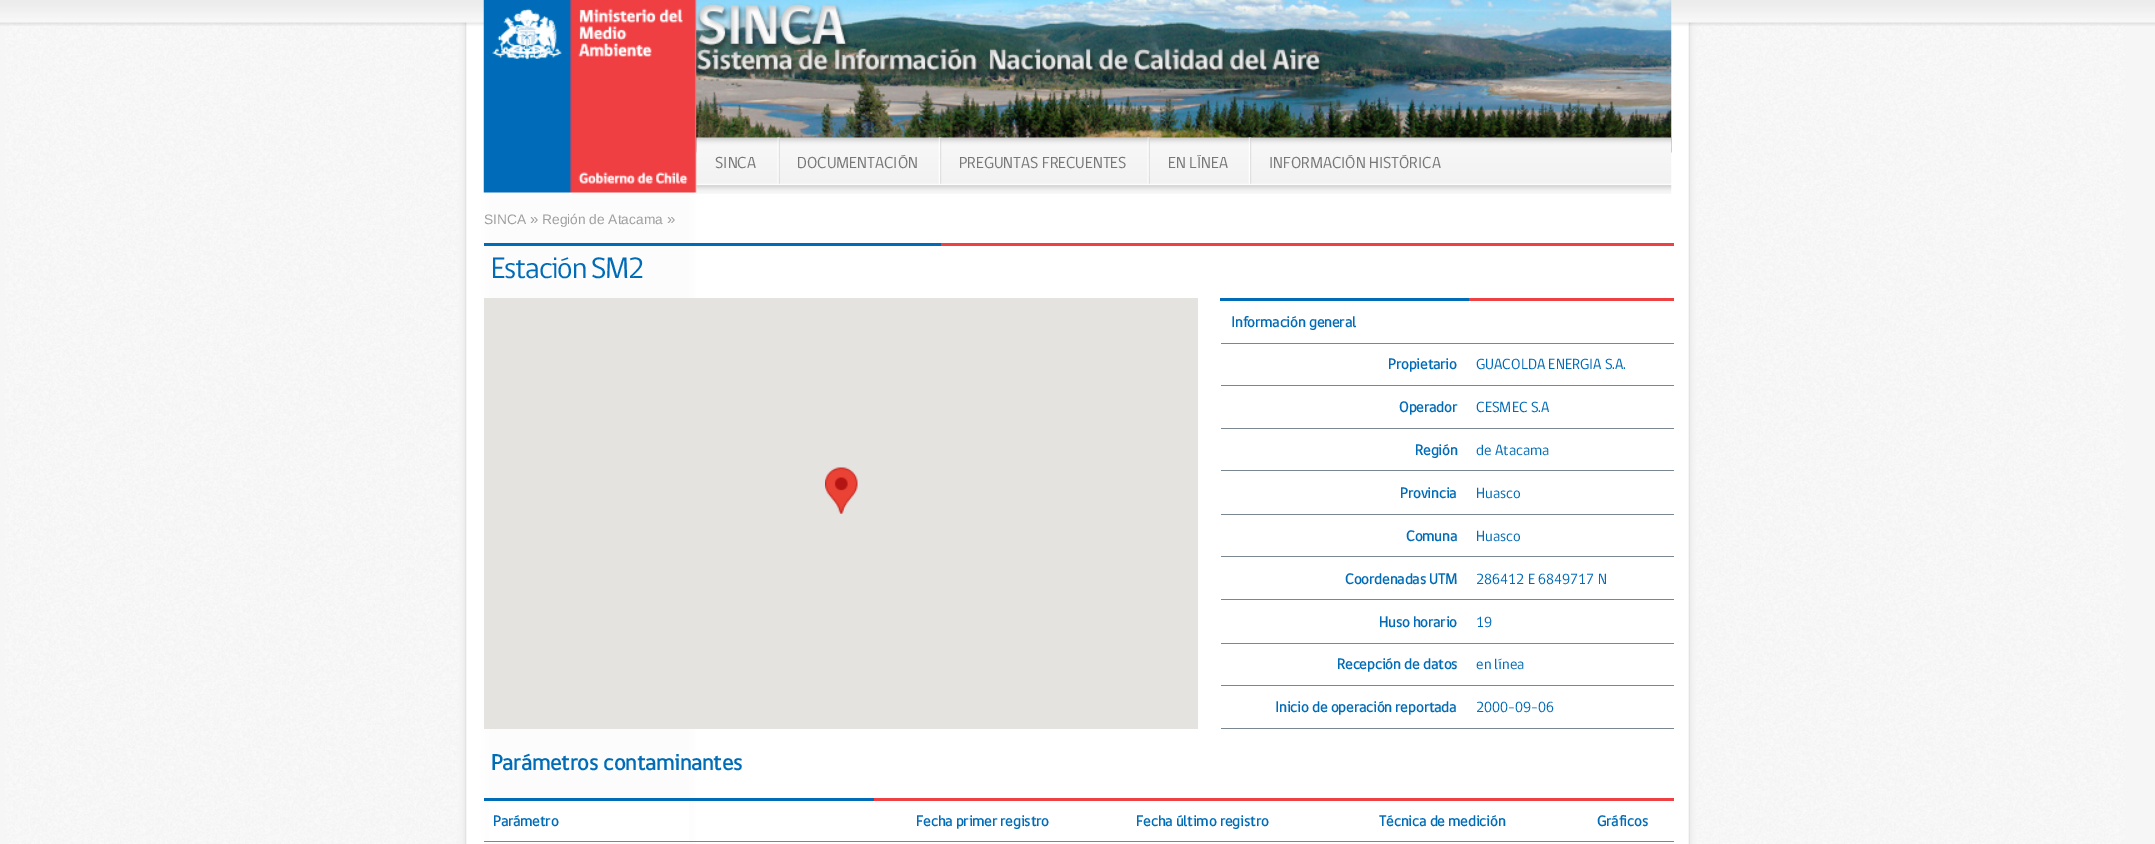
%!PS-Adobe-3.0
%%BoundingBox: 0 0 2155 844
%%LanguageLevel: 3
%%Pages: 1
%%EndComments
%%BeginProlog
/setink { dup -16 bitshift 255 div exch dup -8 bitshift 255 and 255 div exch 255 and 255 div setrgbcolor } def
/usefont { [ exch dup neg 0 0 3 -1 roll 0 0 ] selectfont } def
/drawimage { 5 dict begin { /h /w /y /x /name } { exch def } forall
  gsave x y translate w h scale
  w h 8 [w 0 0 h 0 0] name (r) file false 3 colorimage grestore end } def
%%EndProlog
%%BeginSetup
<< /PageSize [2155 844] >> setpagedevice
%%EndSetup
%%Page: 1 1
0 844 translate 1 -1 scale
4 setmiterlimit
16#F6F6F6 setink
0 0 2155 844 rectfill
(img1.raw) 5 22 2120 822 drawimage
(img2.raw) 0 0 2155 26 drawimage
(img4.raw) 696 0 976 153 drawimage
(img5.raw) 696 137 976 57 drawimage
(img3.raw) 483 0 214 193 drawimage
(img6.raw) 777 137 2 47 drawimage
/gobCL-Regular 16.25 usefont
16#787878 setink
715 168 moveto (SINCA) show
(img7.raw) 938 137 2 47 drawimage
(img8.raw) 778 137 2 47 drawimage
797 168 moveto (DOCUMENTACIÓN) show
(img9.raw) 1147 137 2 47 drawimage
(img10.raw) 940 137 2 47 drawimage
959 168 moveto (PREGUNTAS FRECUENTES) show
(img11.raw) 1248 137 2 47 drawimage
(img12.raw) 1148 137 2 47 drawimage
1168 168 moveto (EN LÍNEA) show
(img13.raw) 1250 137 2 47 drawimage
1269 168 moveto (INFORMACIÓN HISTÓRICA) show
/LiberationSans-Regular 13.75 usefont
16#9F9F9F setink
484 224 moveto (SINCA) show
/LiberationSans-Regular 15 usefont
530 224 moveto (») show
/LiberationSans-Regular 13.75 usefont
542 224 moveto (Región de Atacama) show
/LiberationSans-Regular 15 usefont
667 224 moveto (») show
16#EF4144 setink
941 243 733 3 rectfill
16#006CB7 setink
484 243 457 3 rectfill
/gobCL-Regular 30 usefont
491 278 moveto -1.25 0 (Estación SM2) ashow
16#E5E3DF setink
484 298 714 431 rectfill
(img14.raw) 825 467 33 47 drawimage
[
    [1221 343 453 1 16#7A8791]
    [1466 298 208 3 16#EF4144]
    [1220 298 249 3 16#006CB7]
] { aload pop setink rectfill } forall
/gobCL-Bold 15 usefont
1231 327 moveto (Información general) show
1388 369 moveto (Propietario) show
16#7A8791 setink
1221 385 453 1 rectfill
/gobCL-Regular 15 usefont
16#006CB7 setink
1476 369 moveto (GUACOLDA ENERGIA S.A.) show
/gobCL-Bold 15 usefont
1399 412 moveto (Operador) show
16#7A8791 setink
1221 428 453 1 rectfill
/gobCL-Regular 15 usefont
16#006CB7 setink
1476 412 moveto (CESMEC S.A) show
/gobCL-Bold 15 usefont
1415 455 moveto (Región) show
16#7A8791 setink
1221 470 453 1 rectfill
/gobCL-Regular 15 usefont
16#006CB7 setink
1476 455 moveto (de Atacama) show
/gobCL-Bold 15 usefont
1400 498 moveto (Provincia) show
16#7A8791 setink
1221 514 453 1 rectfill
/gobCL-Regular 15 usefont
16#006CB7 setink
1476 498 moveto (Huasco) show
/gobCL-Bold 15 usefont
1406 541 moveto (Comuna) show
16#7A8791 setink
1221 556 453 1 rectfill
/gobCL-Regular 15 usefont
16#006CB7 setink
1476 541 moveto (Huasco) show
/gobCL-Bold 15 usefont
1345 584 moveto (Coordenadas UTM) show
16#7A8791 setink
1221 599 453 1 rectfill
/gobCL-Regular 15 usefont
16#006CB7 setink
1476 584 moveto (286412 E 6849717 N) show
/gobCL-Bold 15 usefont
1379 627 moveto (Huso horario) show
16#7A8791 setink
1221 643 453 1 rectfill
/gobCL-Regular 15 usefont
16#006CB7 setink
1476 627 moveto (19) show
/gobCL-Bold 15 usefont
1337 669 moveto (Recepción de datos) show
16#7A8791 setink
1221 685 453 1 rectfill
/gobCL-Regular 15 usefont
16#006CB7 setink
1476 669 moveto (en línea) show
/gobCL-Bold 15 usefont
1275 712 moveto (Inicio de operación reportada) show
16#7A8791 setink
1221 728 453 1 rectfill
/gobCL-Regular 15 usefont
16#006CB7 setink
1476 712 moveto (2000-09-06) show
/gobCL-Bold 22.5 usefont
491 770 moveto (Parámetros contaminantes) show
[
    [489 801 200 42 16#FFFFFF]
    [871 798 803 3 16#EF4144]
    [484 798 390 3 16#006CB7]
] { aload pop setink rectfill } forall
/gobCL-Bold 15 usefont
[
    [(Parámetro) 493 826]
    [(Fecha primer registro) 916 826]
    [(Fecha último registro) 1136 826]
    [(Técnica de medición) 1379 826]
] { aload pop moveto show } forall
16#7A8791 setink
484 841 1190 1 rectfill
16#006CB7 setink
1597 826 moveto (Gráficos) show
showpage
%%EOF
